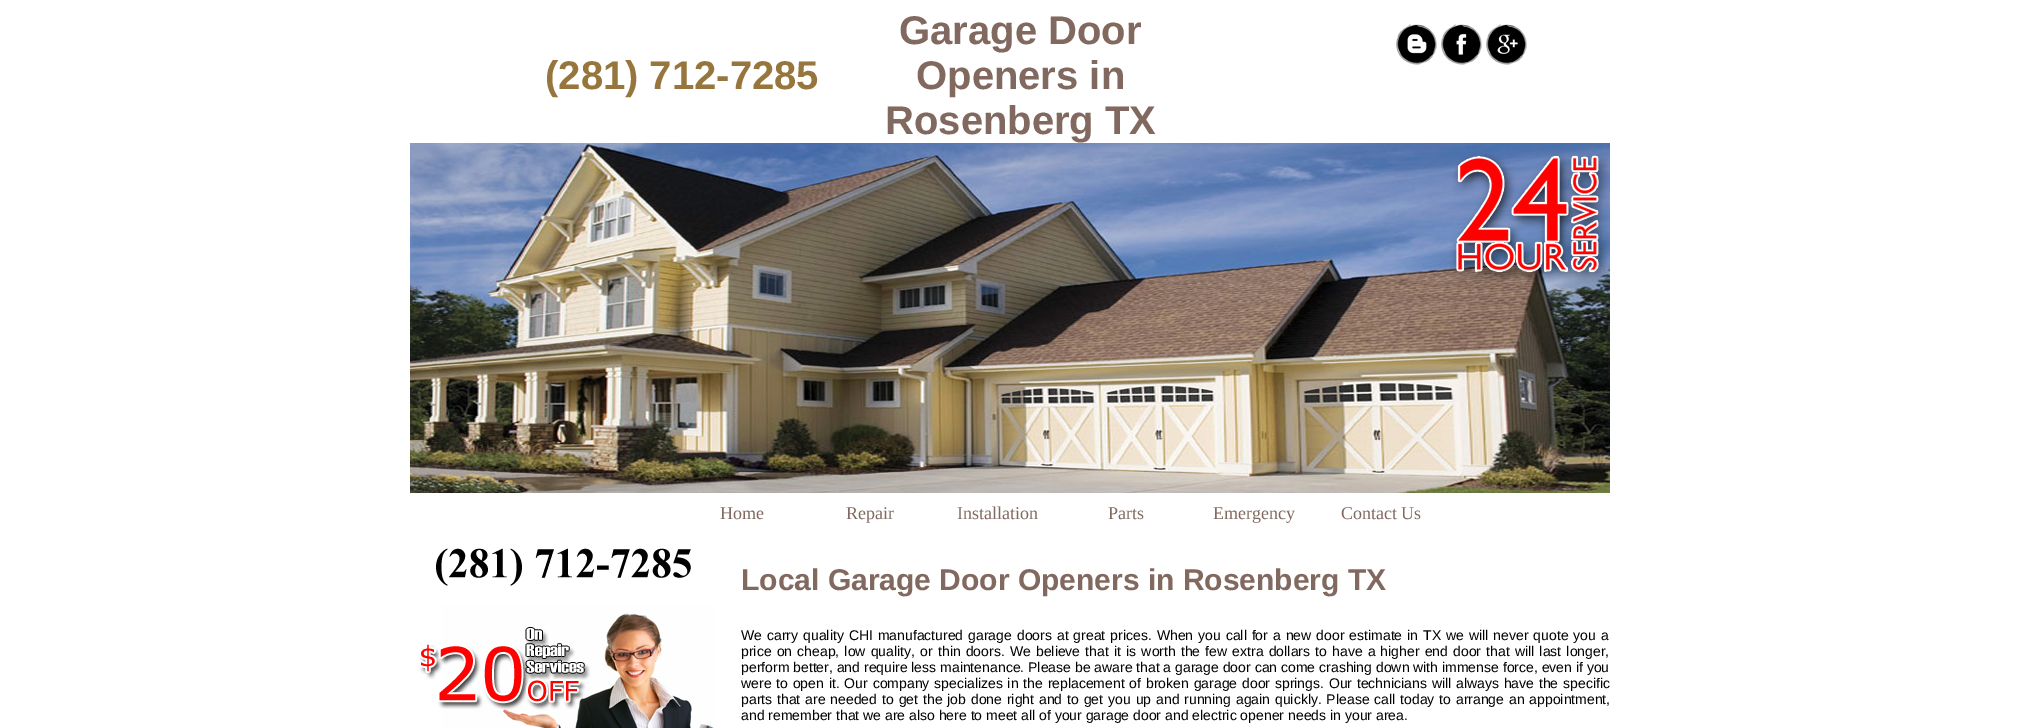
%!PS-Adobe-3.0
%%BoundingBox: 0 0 2019 728
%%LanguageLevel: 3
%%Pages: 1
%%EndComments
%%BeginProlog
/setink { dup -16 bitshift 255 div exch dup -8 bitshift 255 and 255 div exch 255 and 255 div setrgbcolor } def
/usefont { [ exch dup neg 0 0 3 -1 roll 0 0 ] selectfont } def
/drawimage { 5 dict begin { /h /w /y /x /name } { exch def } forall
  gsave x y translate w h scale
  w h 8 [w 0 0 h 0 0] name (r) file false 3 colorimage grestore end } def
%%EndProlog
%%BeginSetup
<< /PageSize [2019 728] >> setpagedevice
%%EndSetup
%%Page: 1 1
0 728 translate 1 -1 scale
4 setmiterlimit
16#FFFFFF setink
0 0 2019 728 rectfill
/LiberationSans-Bold 40 usefont
16#81695F setink
[
    [(Garage Door) 899 44]
    [(Openers in) 916 89]
    [(Rosenberg TX) 885 134]
] { aload pop moveto show } forall
(img1.raw) 1396 24 41 41 drawimage
(img2.raw) 1441 24 41 41 drawimage
(img3.raw) 1486 24 41 41 drawimage
16#96763C setink
545 89 moveto (\(281\) 712-7285) show
(img4.raw) 410 143 1200 350 drawimage
/LiberationSerif-Regular 18 usefont
16#81695F setink
[
    [(Home) 720 519]
    [(Repair) 846 519]
    [(Installation) 957 519]
    [(Parts) 1108 519]
    [(Emergency) 1213 519]
    [(Contact Us) 1341 519]
] { aload pop moveto show } forall
(img5.raw) 419 548 295 180 drawimage
/LiberationSans-Bold 30 usefont
741 590 moveto (Local Garage Door Openers in Rosenberg TX) show
/LiberationSans-Regular 14 usefont
16#000000 setink
741 640 moveto 1.1 0 32 (We carry quality CHI manufactured garage doors at great prices. When you call for a new door estimate in TX we will never quote you a) widthshow
741 656 moveto 1.3 0 32 (price on cheap, low quality, or thin doors. We believe that it is worth the few extra dollars to have a higher end door that will last longer,) widthshow
741 672 moveto (perform better, and require less maintenance. Please be aware that a garage door can come crashing down with immense force, even if you) show
741 688 moveto 0.95 0 32 (were to open it. Our company specializes in the replacement of broken garage door springs. Our technicians will always have the specific) widthshow
741 704 moveto 1 0 32 (parts that are needed to get the job done right and to get you up and running again quickly. Please call today to arrange an appointment,) widthshow
741 720 moveto (and remember that we are also here to meet all of your garage door and electric opener needs in your area.) show
showpage
%%EOF
